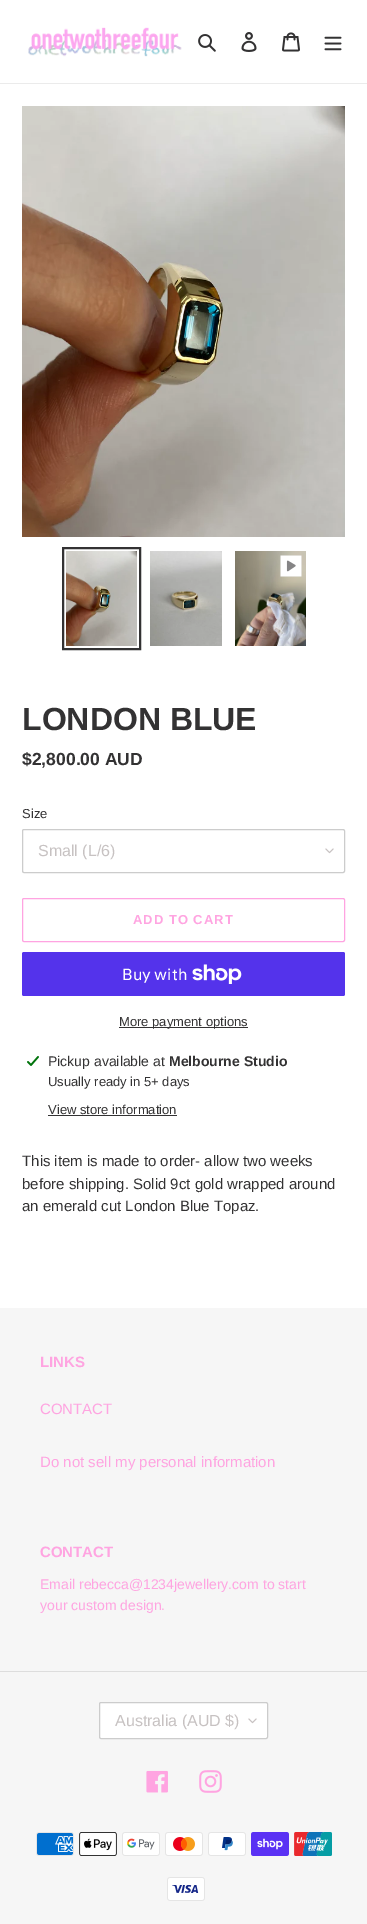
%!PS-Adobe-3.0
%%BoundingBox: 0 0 367 1924
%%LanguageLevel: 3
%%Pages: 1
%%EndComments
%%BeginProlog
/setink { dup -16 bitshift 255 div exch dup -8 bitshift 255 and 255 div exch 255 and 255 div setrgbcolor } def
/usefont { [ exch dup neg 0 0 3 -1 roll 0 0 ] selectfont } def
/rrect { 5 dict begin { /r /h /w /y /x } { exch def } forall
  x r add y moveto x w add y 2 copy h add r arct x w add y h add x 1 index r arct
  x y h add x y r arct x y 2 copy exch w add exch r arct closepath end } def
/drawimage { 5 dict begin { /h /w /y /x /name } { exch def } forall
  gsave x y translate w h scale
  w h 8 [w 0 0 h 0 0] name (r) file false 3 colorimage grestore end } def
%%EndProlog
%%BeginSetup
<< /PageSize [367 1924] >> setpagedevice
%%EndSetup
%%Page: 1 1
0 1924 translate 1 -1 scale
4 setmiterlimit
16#FFFFFF setink
0 0 367 1924 rectfill
16#EBEBEB setink
0 83 367 1 rectfill
(img1.raw) 28 27 154 30 drawimage
(img2.raw) 198 34 18 18 drawimage
(img3.raw) 241 32 16 20 drawimage
(img4.raw) 282 32 18 20 drawimage
(img5.raw) 324 36 18 15 drawimage
(img6.raw) 22 106 323 431 drawimage
16#333233 setink
2 setlinewidth
63 548 77 101 rectstroke
(img7.raw) 66 551 71 95 drawimage
(img8.raw) 150 551 72 95 drawimage
(img9.raw) 235 551 71 95 drawimage
(img10.raw) 280 555 22 22 drawimage
/LiberationSans-Bold 32 usefont
22 730 moveto (LONDON BLUE) show
/LiberationSans-Bold 17.5 usefont
22 765 moveto ($2,800.00 AUD) show
/LiberationSans-Regular 13 usefont
22 818 moveto (Size) show
(img11.raw) 325 848 9 6 drawimage
16#CCCCCC setink
1 setlinewidth
22.5 829.5 322 43 1.5 rrect stroke
/LiberationSans-Regular 16 usefont
16#C7C2C2 setink
38 856 moveto (Small \(L/6\)) show
16#FFA4E1 setink
22.5 898.5 322 43 1.5 rrect stroke
/LiberationSans-Bold 13 usefont
133 924 moveto 1 0 (ADD TO CART) ashow
16#5433EB setink
22 952 323 44 2 rrect fill
/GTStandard-Regular 16 usefont
16#FFFFFF setink
122 980 moveto (Buy with) show
(img12.raw) 192 964 50 20 drawimage
16#333233 setink
119 1027 129 1 rectfill
/LiberationSans-Regular 13 usefont
119 1026 moveto (More payment options) show
(img13.raw) 27 1056 12 10 drawimage
/LiberationSans-Regular 14 usefont
48 1066 moveto (Pickup available at) show
/LiberationSans-Bold 14 usefont
169 1066 moveto (Melbourne Studio) show
/LiberationSans-Regular 13 usefont
48 1086 moveto (Usually ready in 5+ days) show
48 1114 moveto (View store information) show
48 1115 129 1 rectfill
/LiberationSans-Regular 15 usefont
[
    [(This item is made to order- allow two weeks) 22 1166]
    [(before shipping. Solid 9ct gold wrapped around) 22 1189]
    [(an emerald cut London Blue Topaz.) 22 1211]
] { aload pop moveto show } forall
16#F6F6F6 setink
0 1308 367 616 rectfill
/LiberationSans-Bold 15 usefont
16#FFA4E1 setink
40 1367 moveto (LINKS) show
/LiberationSans-Regular 15 usefont
40 1414 moveto (CONTACT) show
40 1467 moveto (Do not sell my personal information) show
/LiberationSans-Bold 15 usefont
40 1557 moveto (CONTACT) show
/LiberationSans-Regular 14 usefont
40 1589 moveto (Email rebecca@1234jewellery.com to start) show
40 1610 moveto (your custom design.) show
16#DDDDDD setink
0 1671 367 1 rectfill
16#FFFFFF setink
99 1702 169 37 2 rrect fill
(img11.raw) 248 1718 9 6 drawimage
16#CCCCCC setink
99.5 1702.5 168 36 1.5 rrect stroke
/LiberationSans-Regular 16 usefont
16#C7C2C2 setink
115 1726 moveto (Australia \(AUD $\)) show
(img14.raw) 146 1770 22 23 drawimage
(img15.raw) 199 1770 23 23 drawimage
(img16.raw) 36 1832 38 24 drawimage
(img17.raw) 79 1832 38 24 drawimage
(img18.raw) 122 1832 38 24 drawimage
(img19.raw) 165 1832 38 24 drawimage
(img20.raw) 208 1832 38 24 drawimage
(img21.raw) 251 1832 38 24 drawimage
(img22.raw) 294 1832 38 24 drawimage
(img23.raw) 167 1877 38 24 drawimage
showpage
%%EOF
